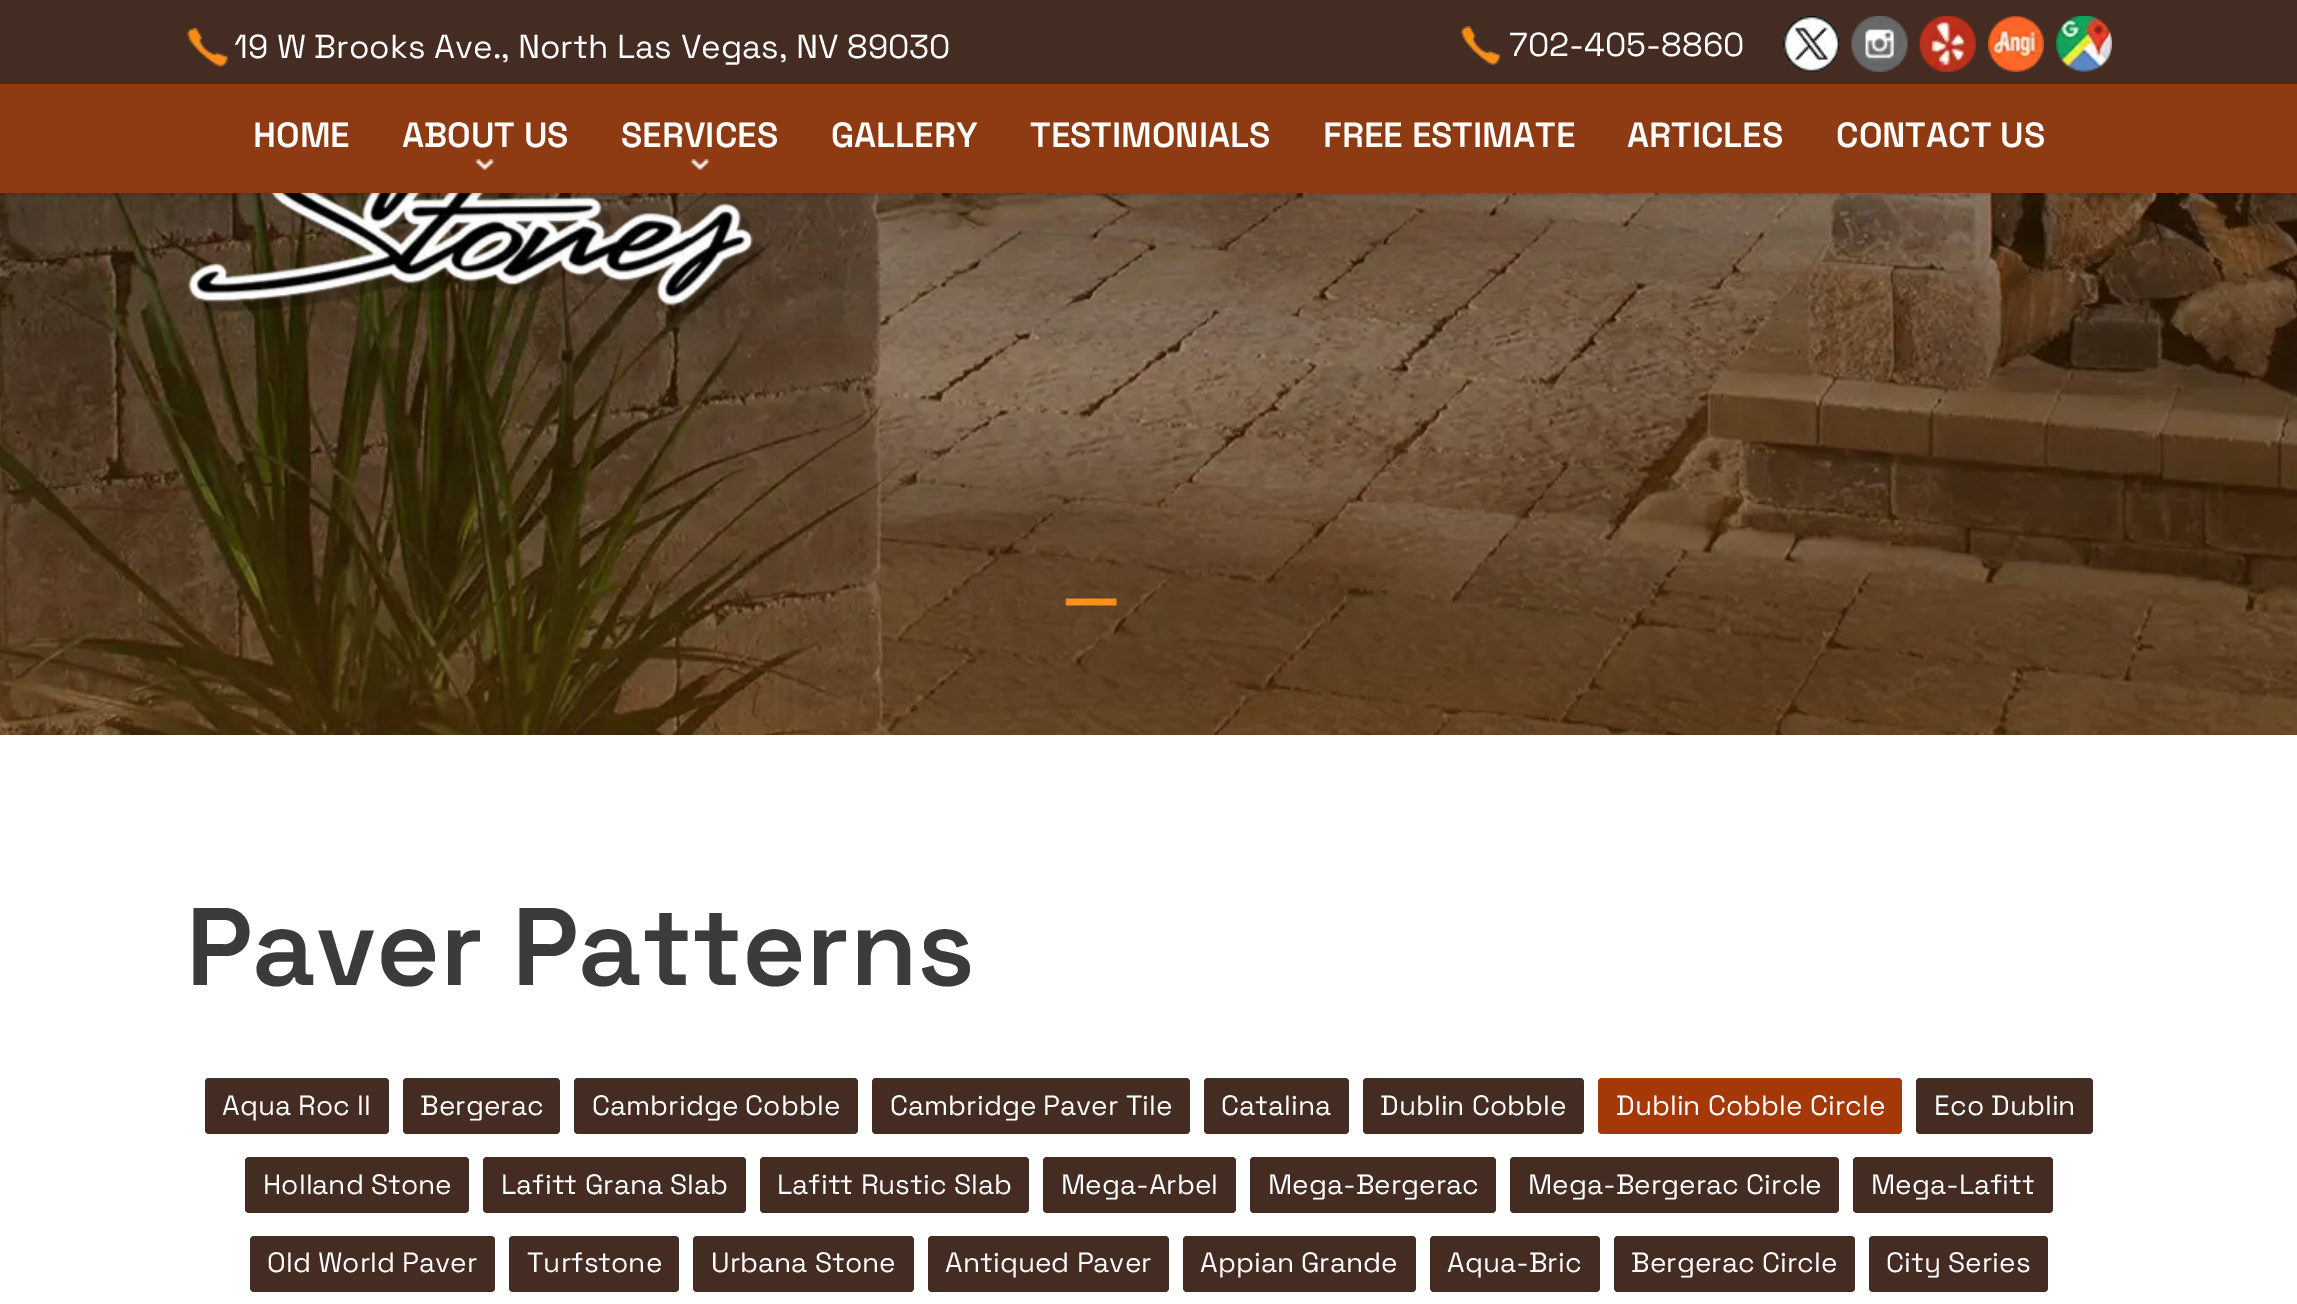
%!PS-Adobe-3.0
%%BoundingBox: 0 0 2297 1304
%%LanguageLevel: 3
%%Pages: 1
%%EndComments
%%BeginProlog
/setink { dup -16 bitshift 255 div exch dup -8 bitshift 255 and 255 div exch 255 and 255 div setrgbcolor } def
/usefont { [ exch dup neg 0 0 3 -1 roll 0 0 ] selectfont } def
/setalpha { dup .setfillconstantalpha .setstrokeconstantalpha } def
/rrect { 5 dict begin { /r /h /w /y /x } { exch def } forall
  x r add y moveto x w add y 2 copy h add r arct x w add y h add x 1 index r arct
  x y h add x y r arct x y 2 copy exch w add exch r arct closepath end } def
/softshadow { 12 dict begin { /a /b /q /h /w /y /x } { exch def } forall gsave /was 0 def
  9 -2 -9 { dup b mul 4 div /e exch def 1 sub .425 mul 2.718 exch exp 1 add a .99 .min exch div /now exch def
    1 1 now sub 1 was sub div sub setalpha /was now def
    w h .min e 2 mul add 0 gt { x e sub y e sub w e 2 mul add h e 2 mul add
      q e add b .6 mul add w h .min 2 div e add .min 0 .max rrect fill } if } for grestore end } def
/drawimage { 5 dict begin { /h /w /y /x /name } { exch def } forall
  gsave x y translate w h scale
  w h 8 [w 0 0 h 0 0] name (r) file false 3 colorimage grestore end } def
%%EndProlog
%%BeginSetup
<< /PageSize [2297 1304] /PageUsesTransparency true >> setpagedevice
%%EndSetup
%%Page: 1 1
0 .pushpdf14devicefilter
0 1304 translate 1 -1 scale
4 setmiterlimit
16#FFFFFF setink
0 0 2297 1304 rectfill
(img10.raw) 0 193 2297 542 drawimage
(img11.raw) 0 193 2297 530 drawimage
(img12.raw) 0 243 2297 492 drawimage
(img13.raw) 188 193 575 122 drawimage
16#000000 setink
0 2 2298 192 0 2.5 0.2 softshadow
16#442C23 setink
0 0 2297 84 rectfill
(img1.raw) 187 28 41 39 drawimage
/SpaceGrotesk-Light 33.25 usefont
16#FFFFFF setink
234 58 moveto (19 W Brooks Ave., North Las Vegas, NV 89030) show
(img2.raw) 1461 26 39 39 drawimage
1509 56 moveto (702-405-8860) show
(img3.raw) 1783 16 57 56 drawimage
(img4.raw) 1851 16 57 56 drawimage
(img5.raw) 1919 16 57 56 drawimage
(img6.raw) 1988 16 56 56 drawimage
(img7.raw) 2056 16 56 56 drawimage
16#8E3B14 setink
0 84 2297 109 rectfill
/SpaceGrotesk-SemiBold 35 usefont
16#FFFFFF setink
253 147 moveto (HOME) show
(img8.raw) 476 159 18 11 drawimage
402 147 moveto (ABOUT US) show
(img9.raw) 691 159 18 11 drawimage
[
    [(SERVICES) 621 147]
    [(GALLERY) 831 147]
    [(TESTIMONIALS) 1030 147]
    [(FREE ESTIMATE) 1323 147]
    [(ARTICLES) 1627 147]
    [(CONTACT US) 1836 147]
] { aload pop moveto show } forall
(img14.raw) 1065 598 52 8 drawimage
/SpaceGrotesk-SemiBold 110.25 usefont
16#3B3B3B setink
186 985 moveto (Paver Patterns) show
16#442C23 setink
205 1078 184 56 4 rrect fill
/SpaceGrotesk-Light 28 usefont
16#FFFFFF setink
222 1115 moveto (Aqua Roc II) show
16#442C23 setink
403 1078 157 56 4 rrect fill
16#FFFFFF setink
420 1115 moveto (Bergerac) show
16#442C23 setink
574 1078 284 56 4 rrect fill
16#FFFFFF setink
592 1115 moveto (Cambridge Cobble) show
16#442C23 setink
872 1078 318 56 4 rrect fill
16#FFFFFF setink
890 1115 moveto (Cambridge Paver Tile) show
16#442C23 setink
1204 1078 145 56 4 rrect fill
16#FFFFFF setink
1221 1115 moveto (Catalina) show
16#442C23 setink
1363 1078 221 56 4 rrect fill
16#FFFFFF setink
1380 1115 moveto (Dublin Cobble) show
16#A43807 setink
1598 1078 304 56 4 rrect fill
16#FFFFFF setink
1616 1115 moveto (Dublin Cobble Circle) show
16#442C23 setink
1916 1078 177 56 4 rrect fill
16#FFFFFF setink
1934 1115 moveto (Eco Dublin) show
16#442C23 setink
245 1157 224 56 4 rrect fill
16#FFFFFF setink
263 1194 moveto (Holland Stone) show
16#442C23 setink
483 1157 263 56 4 rrect fill
16#FFFFFF setink
501 1194 moveto (Lafitt Grana Slab) show
16#442C23 setink
760 1157 269 56 4 rrect fill
16#FFFFFF setink
777 1194 moveto (Lafitt Rustic Slab) show
16#442C23 setink
1043 1157 193 56 4 rrect fill
16#FFFFFF setink
1061 1194 moveto (Mega-Arbel) show
16#442C23 setink
1250 1157 246 56 4 rrect fill
16#FFFFFF setink
1268 1194 moveto (Mega-Bergerac) show
16#442C23 setink
1510 1157 329 56 4 rrect fill
16#FFFFFF setink
1528 1194 moveto (Mega-Bergerac Circle) show
16#442C23 setink
1853 1157 200 56 4 rrect fill
16#FFFFFF setink
1871 1194 moveto (Mega-Lafitt) show
16#442C23 setink
250 1236 245 56 4 rrect fill
16#FFFFFF setink
267 1272 moveto (Old World Paver) show
16#442C23 setink
509 1236 170 56 4 rrect fill
16#FFFFFF setink
527 1272 moveto (Turfstone) show
16#442C23 setink
693 1236 221 56 4 rrect fill
16#FFFFFF setink
711 1272 moveto (Urbana Stone) show
16#442C23 setink
928 1236 241 56 4 rrect fill
16#FFFFFF setink
945 1272 moveto (Antiqued Paver) show
16#442C23 setink
1183 1236 233 56 4 rrect fill
16#FFFFFF setink
1200 1272 moveto (Appian Grande) show
16#442C23 setink
1430 1236 170 56 4 rrect fill
16#FFFFFF setink
1447 1272 moveto (Aqua-Bric) show
16#442C23 setink
1614 1236 241 56 4 rrect fill
16#FFFFFF setink
1631 1272 moveto (Bergerac Circle) show
16#442C23 setink
1869 1236 179 56 4 rrect fill
16#FFFFFF setink
1886 1272 moveto (City Series) show
.poppdf14devicefilter showpage
%%EOF
